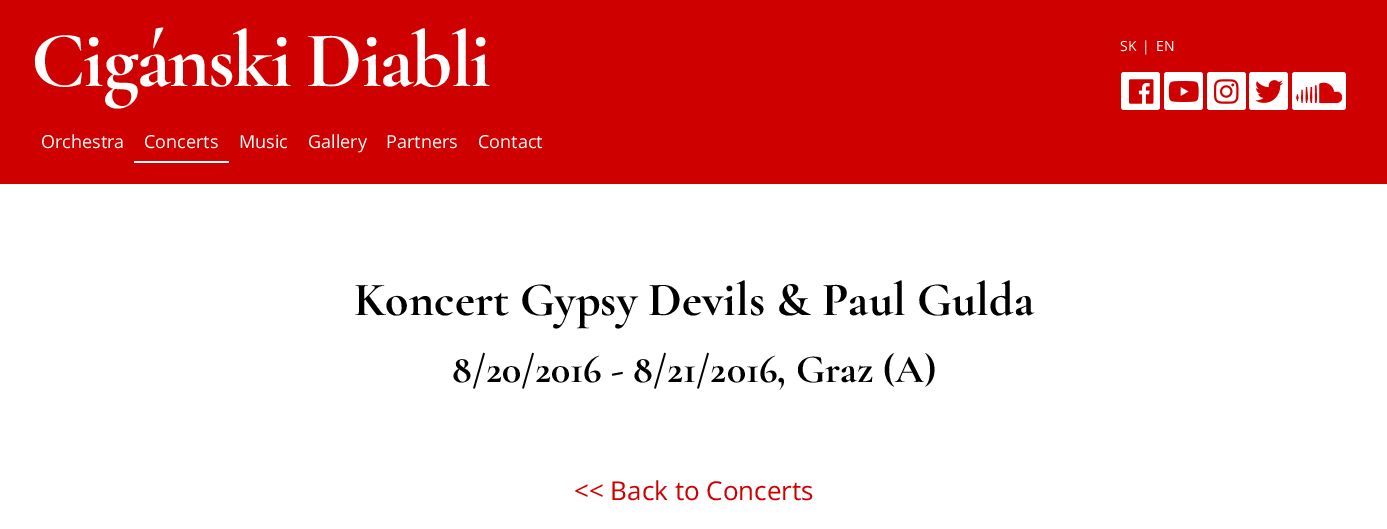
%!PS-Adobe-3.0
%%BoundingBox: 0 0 1387 529
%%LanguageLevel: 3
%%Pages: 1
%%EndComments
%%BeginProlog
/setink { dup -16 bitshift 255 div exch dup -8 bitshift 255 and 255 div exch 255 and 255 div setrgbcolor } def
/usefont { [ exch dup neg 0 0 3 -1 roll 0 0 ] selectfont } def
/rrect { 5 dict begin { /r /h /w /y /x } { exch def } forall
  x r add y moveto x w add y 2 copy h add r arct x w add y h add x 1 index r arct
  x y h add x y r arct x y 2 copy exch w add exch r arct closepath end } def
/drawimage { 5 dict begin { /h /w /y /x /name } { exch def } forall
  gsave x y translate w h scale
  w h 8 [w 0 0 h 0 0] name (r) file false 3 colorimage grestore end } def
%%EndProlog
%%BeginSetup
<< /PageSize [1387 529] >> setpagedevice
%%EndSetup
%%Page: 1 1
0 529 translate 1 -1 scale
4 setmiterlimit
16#FFFFFF setink
0 0 1387 529 rectfill
16#CF0000 setink
0 0 1387 184 rectfill
/CormorantGaramond-Light 80 usefont
16#FFFFFF setink
31 86 moveto -2 0 (Cigánski Diabli) ashow
/OpenSans-Regular 14 usefont
[
    [(SK) 1120 51]
    [(|) 1142 51]
    [(EN) 1156 51]
] { aload pop moveto show } forall
1121 72 39 38 3 rrect fill
(img1.raw) 1129 79 25 25 drawimage
1164 72 39 38 3 rrect fill
(img2.raw) 1168 81 31 21 drawimage
1207 72 39 38 3 rrect fill
(img3.raw) 1214 79 25 25 drawimage
1249 72 39 38 3 rrect fill
(img4.raw) 1255 80 28 23 drawimage
1292 72 54 38 3 rrect fill
(img5.raw) 1296 82 47 22 drawimage
/OpenSans-Regular 18 usefont
41 148 moveto (Orchestra) show
134 161 95 2 rectfill
[
    [(Concerts) 144 148]
    [(Music) 239 148]
    [(Gallery) 308 148]
    [(Partners) 386 148]
    [(Contact) 478 148]
] { aload pop moveto show } forall
/CormorantGaramond-Light 48 usefont
16#000000 setink
354 315 moveto (Koncert Gypsy Devils & Paul Gulda) show
/CormorantGaramond-Light 40 usefont
452 382 moveto (8/20/2016 - 8/21/2016, Graz \(A\)) show
/OpenSans-Regular 26 usefont
16#CF0000 setink
574 500 moveto (<< Back to Concerts) show
showpage
%%EOF
